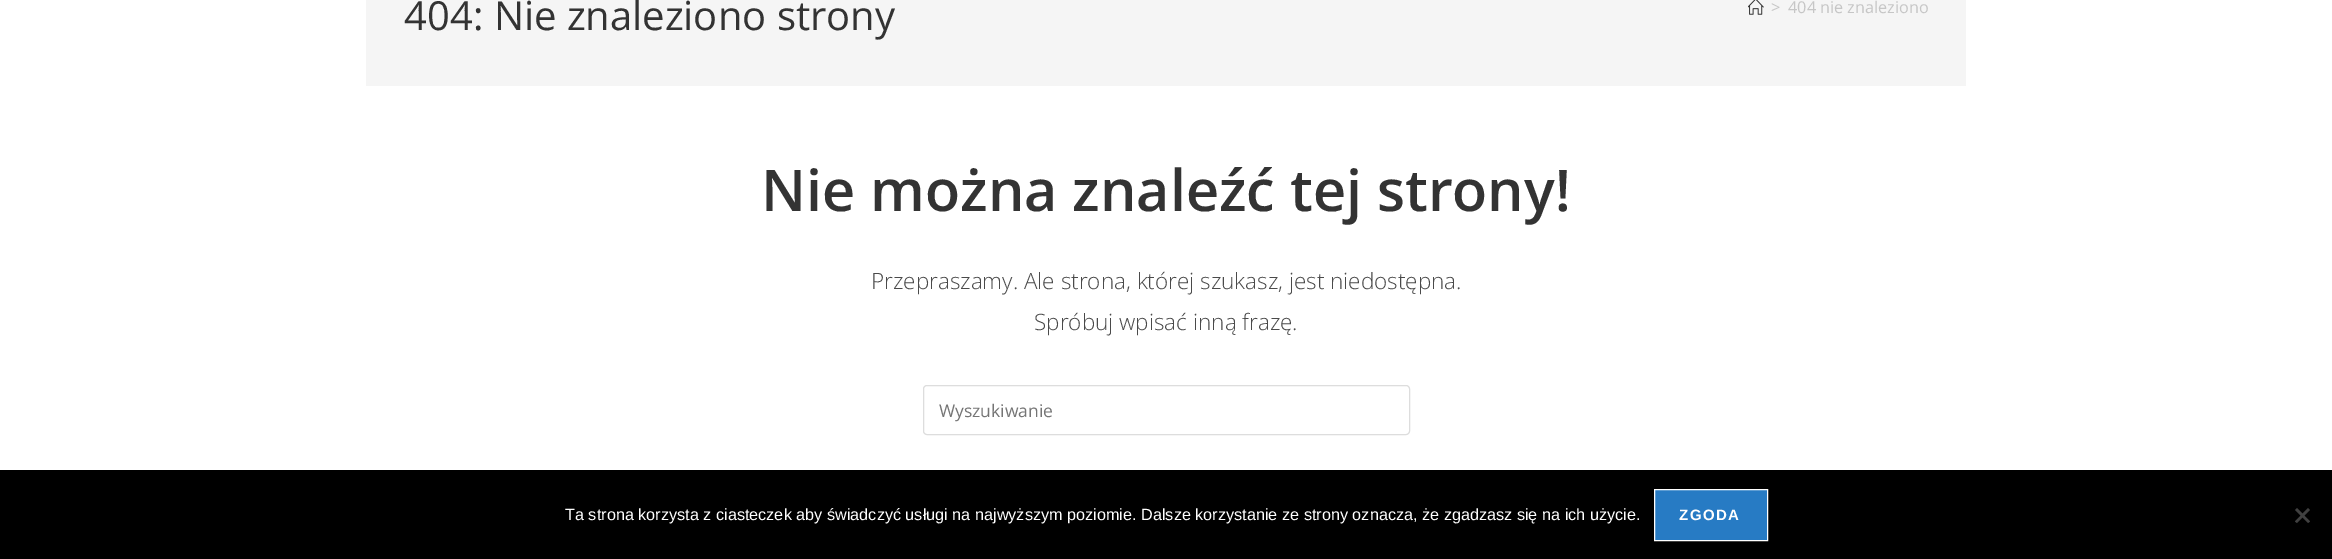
%!PS-Adobe-3.0
%%BoundingBox: 0 0 2332 559
%%LanguageLevel: 3
%%Pages: 1
%%EndComments
%%BeginProlog
/setink { dup -16 bitshift 255 div exch dup -8 bitshift 255 and 255 div exch 255 and 255 div setrgbcolor } def
/usefont { [ exch dup neg 0 0 3 -1 roll 0 0 ] selectfont } def
/rrect { 5 dict begin { /r /h /w /y /x } { exch def } forall
  x r add y moveto x w add y 2 copy h add r arct x w add y h add x 1 index r arct
  x y h add x y r arct x y 2 copy exch w add exch r arct closepath end } def
/drawimage { 5 dict begin { /h /w /y /x /name } { exch def } forall
  gsave x y translate w h scale
  w h 8 [w 0 0 h 0 0] name (r) file false 3 colorimage grestore end } def
%%EndProlog
%%BeginSetup
<< /PageSize [2332 559] >> setpagedevice
%%EndSetup
%%Page: 1 1
0 559 translate 1 -1 scale
4 setmiterlimit
16#FFFFFF setink
0 0 2332 559 rectfill
16#F5F5F5 setink
366 0 1600 86 rectfill
/OpenSans-Regular 40 usefont
16#333333 setink
404 30 moveto (404: Nie znaleziono strony) show
(img1.raw) 1748 0 16 15 drawimage
/OpenSans-Regular 16.25 usefont
16#C6C6C6 setink
1771 13 moveto (>) show
1788 13 moveto (404 nie znaleziono) show
/OpenSans-SemiBold 57.5 usefont
16#333333 setink
761 211 moveto (Nie można znaleźć tej strony!) show
/OpenSans-Light 22.5 usefont
16#4A4A4A setink
871 289 moveto (Przepraszamy. Ale strona, której szukasz, jest niedostępna.) show
1034 330 moveto (Spróbuj wpisać inną frazę.) show
16#DDDDDD setink
923.5 385.5 486 49 3.5 rrect stroke
/OpenSans-Regular 17.5 usefont
16#757575 setink
939 417 moveto (Wyszukiwanie) show
16#000000 setink
0 470 2332 89 rectfill
/LiberationSans-Regular 16.25 usefont
16#FFFFFF setink
565 520 moveto (Ta strona korzysta z ciasteczek aby świadczyć usługi na najwyższym poziomie. Dalsze korzystanie ze strony oznacza, że zgadzasz się na ich użycie.) show
16#277BC4 setink
1654.5 489.5 moveto 1767.5 489.5 lineto 1767.5 540.5 lineto 1654.5 540.5 lineto closepath gsave fill grestore
16#FFFFFF setink
stroke
/LiberationSans-Bold 15 usefont
1679 520 moveto 1.5 0 (ZGODA) ashow
16#404040 setink
2308 508 moveto 2310 510 lineto 2297 523 lineto 2295 521.5 lineto closepath fill
2295 510 moveto 2297 508 lineto 2310 521.5 lineto 2308 523 lineto closepath fill
showpage
%%EOF
